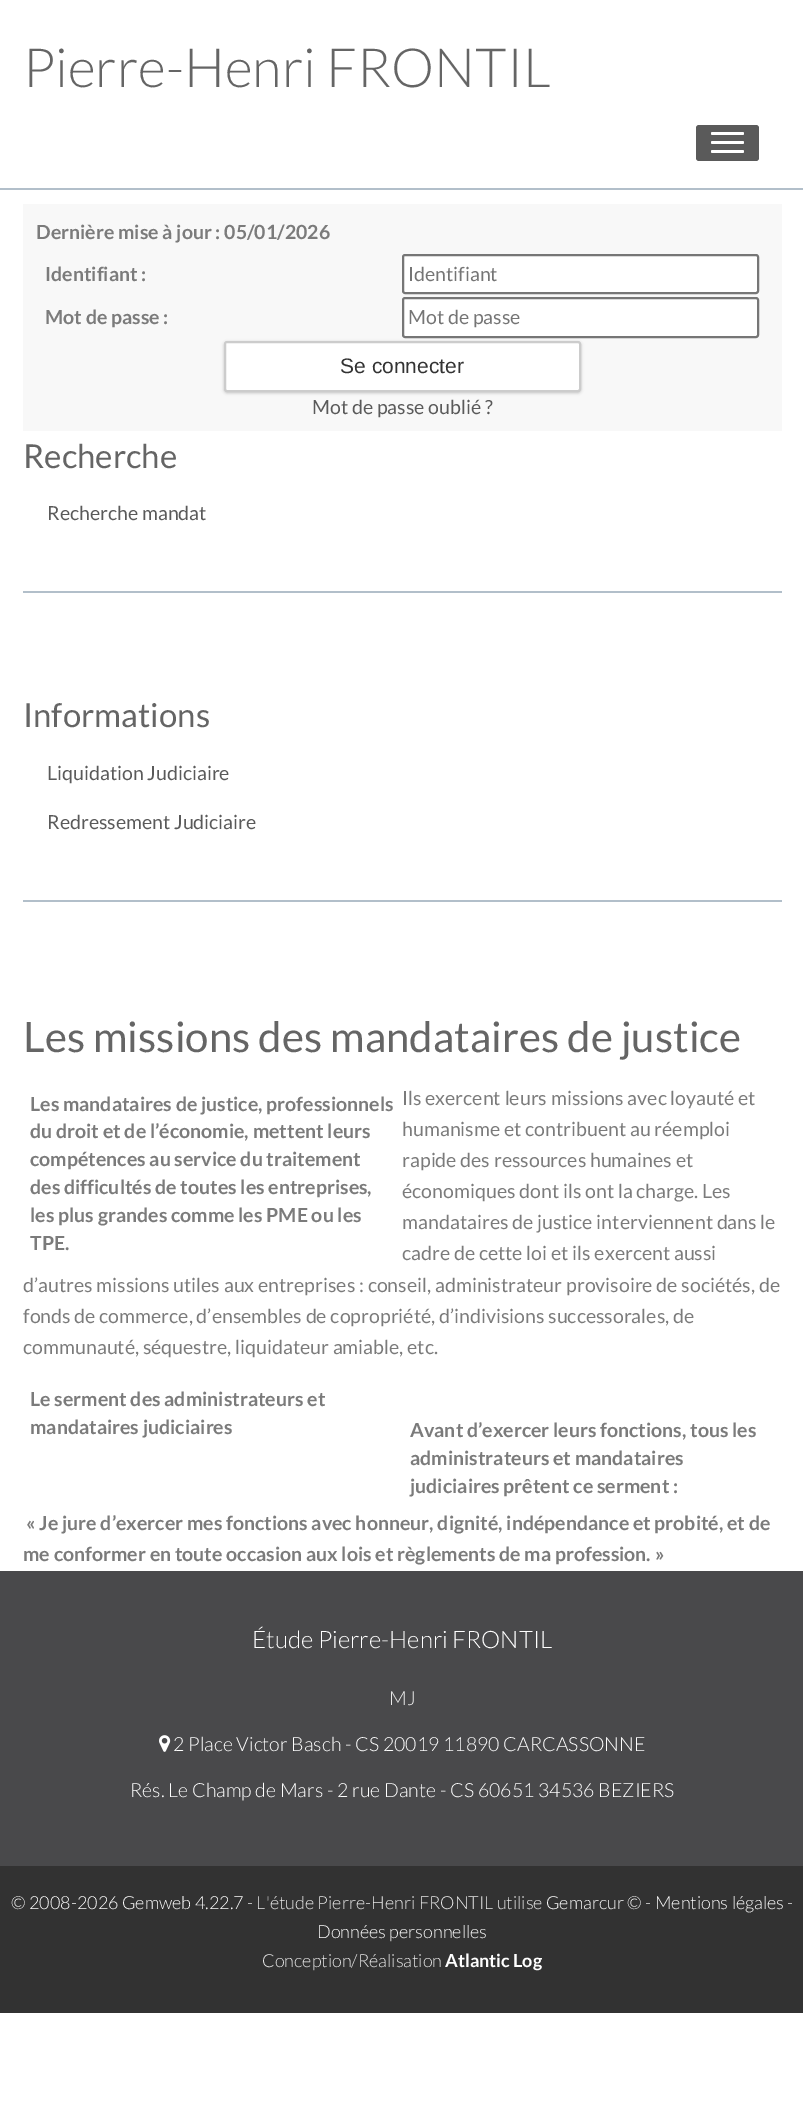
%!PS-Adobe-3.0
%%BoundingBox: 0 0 803 2119
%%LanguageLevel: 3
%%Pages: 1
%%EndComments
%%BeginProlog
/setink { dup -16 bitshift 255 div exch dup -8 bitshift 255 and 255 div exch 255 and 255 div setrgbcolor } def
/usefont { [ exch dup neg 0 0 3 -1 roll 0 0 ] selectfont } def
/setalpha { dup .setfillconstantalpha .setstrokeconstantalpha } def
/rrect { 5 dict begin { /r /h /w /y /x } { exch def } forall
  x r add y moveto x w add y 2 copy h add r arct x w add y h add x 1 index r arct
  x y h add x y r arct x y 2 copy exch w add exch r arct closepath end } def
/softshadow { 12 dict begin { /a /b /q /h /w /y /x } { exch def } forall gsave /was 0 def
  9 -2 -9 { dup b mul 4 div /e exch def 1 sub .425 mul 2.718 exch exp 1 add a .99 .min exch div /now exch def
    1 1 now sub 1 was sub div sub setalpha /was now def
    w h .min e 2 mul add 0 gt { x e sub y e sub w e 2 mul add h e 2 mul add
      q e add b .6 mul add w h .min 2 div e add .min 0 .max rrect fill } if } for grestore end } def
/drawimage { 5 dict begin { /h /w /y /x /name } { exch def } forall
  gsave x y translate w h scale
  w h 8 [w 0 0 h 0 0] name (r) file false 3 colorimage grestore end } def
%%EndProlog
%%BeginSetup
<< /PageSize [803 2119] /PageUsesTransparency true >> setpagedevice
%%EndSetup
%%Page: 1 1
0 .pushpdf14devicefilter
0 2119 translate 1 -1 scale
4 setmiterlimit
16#FFFFFF setink
0 0 803 2119 rectfill
16#B2BFCA setink
0 188 803 2 rectfill
/Lato-Light 54 usefont
16#656565 setink
23 87 moveto (Pierre-Henri FRONTIL) show
16#5A5A5A setink
696 125 63 36 3 rrect fill
16#FFFFFF setink
711 132 33 3 1.5 rrect fill
711 141 33 3 1.5 rrect fill
711 150 33 3 1.5 rrect fill
16#F8F8F8 setink
23 204 759 227 rectfill
/Lato-Bold 19.5 usefont
16#7B7B7B setink
36 239 moveto (Dernière mise à jour : 05/01/2026) show
45 281 moveto (Identifiant :) show
16#FFFFFF setink
403 255 355 38 2 rrect gsave fill grestore
16#767676 setink
2 setlinewidth
stroke
/Lato-Regular 19.5 usefont
16#757575 setink
408 281 moveto (Identifiant) show
/Lato-Bold 19.5 usefont
16#7B7B7B setink
45 324 moveto (Mot de passe :) show
16#FFFFFF setink
403 298 355 39 2 rrect gsave fill grestore
16#767676 setink
stroke
/Lato-Regular 19.5 usefont
16#757575 setink
408 324 moveto (Mot de passe) show
16#000000 setink
224 342 357 51 3 1.5 0.2 softshadow
16#FFFFFF setink
225 342 355 49 2 rrect gsave fill grestore
16#CCCCCC setink
stroke
/LiberationSans-Regular 21 usefont
16#333333 setink
340 373 moveto (Se connecter) show
/Lato-Regular 19.5 usefont
16#5A5A5A setink
312 414 moveto (Mot de passe oublié ?) show
16#B2BFCA setink
23 591 759 2 rectfill
/Lato-Regular 33 usefont
16#656565 setink
23 468 moveto (Recherche) show
/Lato-Regular 19.5 usefont
16#5A5A5A setink
47 520 moveto (Recherche mandat) show
16#B2BFCA setink
23 900 759 2 rectfill
/Lato-Regular 33 usefont
16#656565 setink
23 727 moveto (Informations) show
/Lato-Regular 19.5 usefont
16#5A5A5A setink
47 780 moveto (Liquidation Judiciaire) show
47 829 moveto (Redressement Judiciaire) show
/Lato-Regular 42 usefont
16#656565 setink
23 1052 moveto (Les missions des mandataires de justice) show
/Lato-Regular 19.5 usefont
16#7B7B7B setink
[
    [(Ils exercent leurs missions avec loyauté et) 402 1105]
    [(humanisme et contribuent au réemploi) 402 1136]
    [(rapide des ressources humaines et) 402 1167]
    [(économiques dont ils ont la charge. Les) 402 1198]
    [(mandataires de justice interviennent dans le) 402 1229]
    [(cadre de cette loi et ils exercent aussi) 402 1260]
    [(d’autres missions utiles aux entreprises : conseil, administrateur provisoire de sociétés, de) 23 1292]
    [(fonds de commerce, d’ensembles de copropriété, d’indivisions successorales, de) 23 1323]
    [(communauté, séquestre, liquidateur amiable, etc.) 23 1354]
] { aload pop moveto show } forall
/Lato-Bold 19.5 usefont
[
    [(Les mandataires de justice, professionnels) 30 1111]
    [(du droit et de l’économie, mettent leurs) 30 1138]
    [(compétences au service du traitement) 30 1166]
    [(des difficultés de toutes les entreprises,) 30 1194]
    [(les plus grandes comme les PME ou les) 30 1222]
    [(TPE.) 30 1250]
    [(Le serment des administrateurs et) 30 1406]
    [(mandataires judiciaires) 30 1434]
    [(Avant d’exercer leurs fonctions, tous les) 410 1437]
    [(administrateurs et mandataires) 410 1465]
    [(judiciaires prêtent ce serment :) 410 1493]
    [(« Je jure d’exercer mes fonctions avec honneur, dignité, indépendance et probité, et de) 26 1530]
    [(me conformer en toute occasion aux lois et règlements de ma profession. ») 23 1561]
] { aload pop moveto show } forall
16#49494B setink
0 1571 803 295 rectfill
/Lato-Light 24 usefont
16#FFFFFF setink
252 1648 moveto (Étude Pierre-Henri FRONTIL) show
/Lato-Light 19.5 usefont
16#EAEAEA setink
389 1705 moveto (MJ) show
(img1.raw) 159 1735 12 17 drawimage
16#FFFFFF setink
173 1751 moveto (2 Place Victor Basch - CS 20019 11890 CARCASSONNE) show
130 1797 moveto (Rés. Le Champ de Mars - 2 rue Dante - CS 60651 34536 BEZIERS) show
16#323232 setink
0 1866 803 147 rectfill
/Lato-Light 18 usefont
16#FFFFFF setink
11 1909 moveto (© 2008-2026 Gemweb 4.22.7) show
16#EAEAEA setink
247 1909 moveto (- L'étude Pierre-Henri FRONTIL utilise) show
16#FFFFFF setink
546 1909 moveto (Gemarcur ©) show
16#EAEAEA setink
645 1909 moveto (-) show
16#FFFFFF setink
655 1909 moveto (Mentions légales) show
16#EAEAEA setink
787 1909 moveto (-) show
16#FFFFFF setink
317 1938 moveto (Données personnelles) show
16#EAEAEA setink
262 1967 moveto (Conception/Réalisation) show
/Lato-Bold 18 usefont
16#FFFFFF setink
445 1967 moveto (Atlantic Log) show
.poppdf14devicefilter showpage
%%EOF
